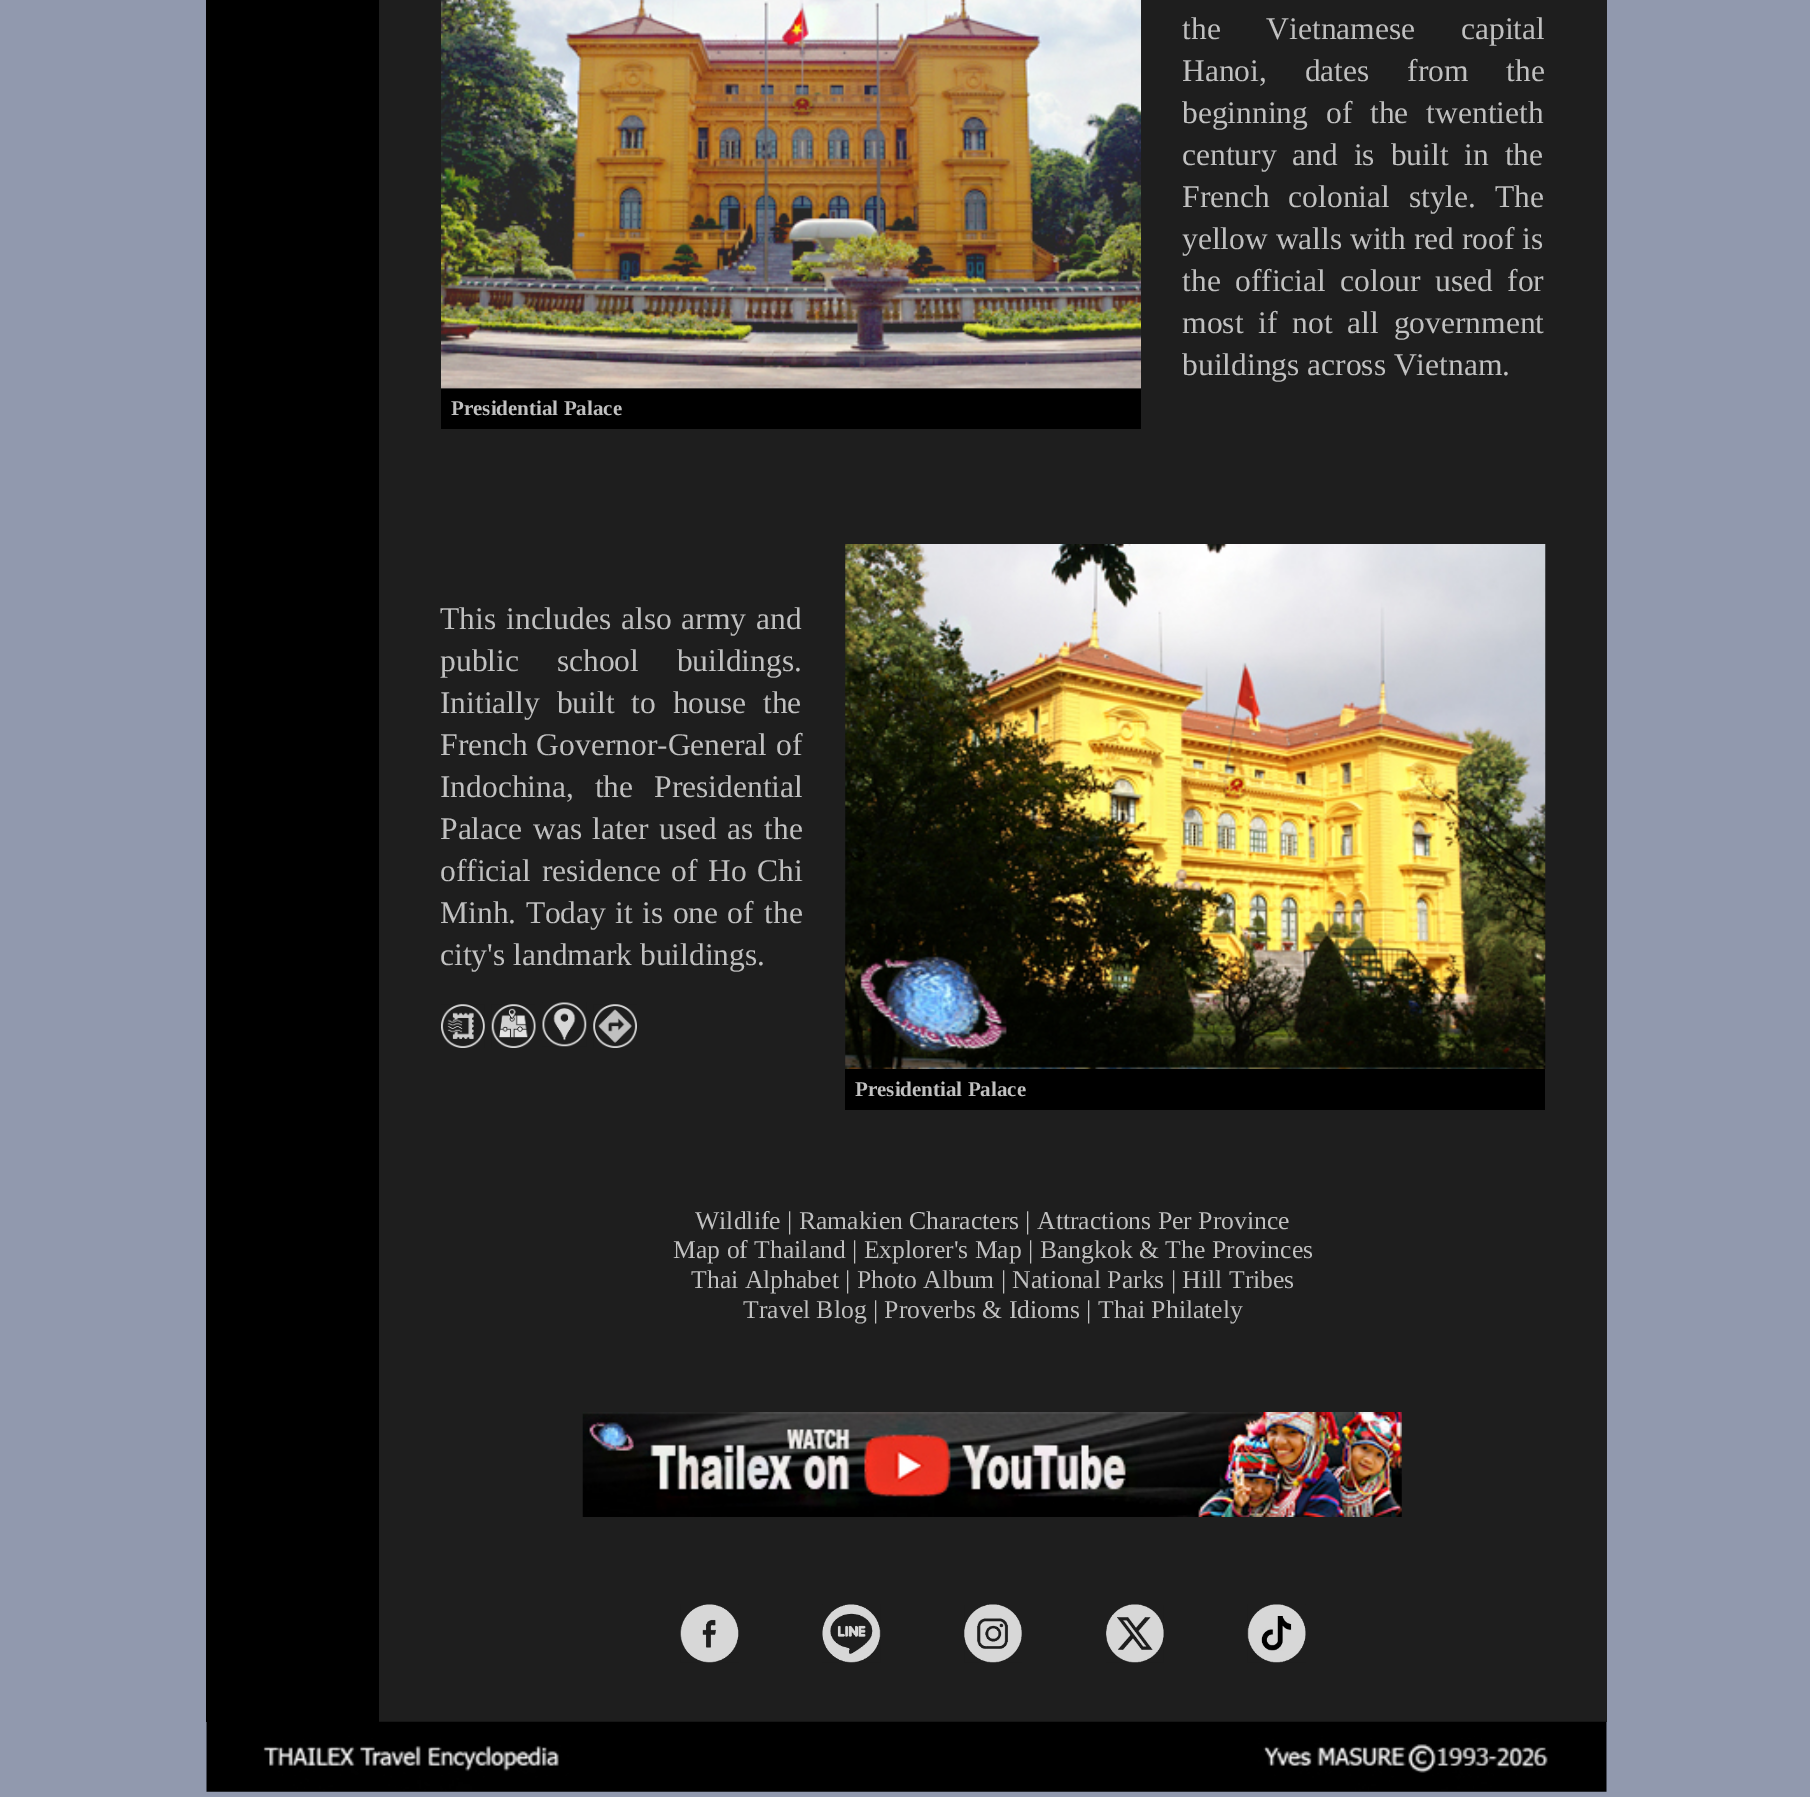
%!PS-Adobe-3.0
%%BoundingBox: 0 0 1810 1797
%%LanguageLevel: 3
%%Pages: 1
%%EndComments
%%BeginProlog
/setink { dup -16 bitshift 255 div exch dup -8 bitshift 255 and 255 div exch 255 and 255 div setrgbcolor } def
/usefont { [ exch dup neg 0 0 3 -1 roll 0 0 ] selectfont } def
/drawimage { 5 dict begin { /h /w /y /x /name } { exch def } forall
  gsave x y translate w h scale
  w h 8 [w 0 0 h 0 0] name (r) file false 3 colorimage grestore end } def
%%EndProlog
%%BeginSetup
<< /PageSize [1810 1797] >> setpagedevice
%%EndSetup
%%Page: 1 1
0 1797 translate 1 -1 scale
4 setmiterlimit
16#9199AE setink
0 0 1810 1797 rectfill
16#000000 setink
206 0 173 1722 rectfill
16#1E1E1E setink
379 0 1228 1722 rectfill
/LiberationSerif-Regular 31.5 usefont
16#C0C0C0 setink
1182 39 moveto 38 0 32 (the Vietnamese capital) widthshow
1182 81 moveto 30 0 32 (Hanoi, dates from the) widthshow
1182 123 moveto 10 0 32 (beginning of the twentieth) widthshow
1182 165 moveto 8 0 32 (century and is built in the) widthshow
1182 207 moveto 11 0 32 (French colonial style. The) widthshow
1182 249 moveto (yellow walls with red roof is) show
1182 291 moveto 6.5 0 32 (the official colour used for) widthshow
1182 333 moveto 7 0 32 (most if not all government) widthshow
1182 375 moveto (buildings across Vietnam.) show
(img1.raw) 441 0 700 389 drawimage
16#000000 setink
441 389 700 40 rectfill
/LiberationSerif-Bold 21 usefont
16#C0C0C0 setink
451 415 moveto (Presidential Palace) show
/LiberationSerif-Regular 31.5 usefont
440 629 moveto (This) show
506 629 moveto 2 0 32 (includes also army and) widthshow
440 671 moveto 30 0 32 (public school buildings.) widthshow
440 713 moveto 9 0 32 (Initially built to house the) widthshow
440 755 moveto 1 0 32 (French Governor-General of) widthshow
440 797 moveto 13 0 32 (Indochina, the Presidential) widthshow
440 839 moveto 2.75 0 32 (Palace was later used as the) widthshow
440 881 moveto 2.75 0 32 (official residence of Ho Chi) widthshow
440 923 moveto 1.5 0 32 (Minh. Today it is one of) widthshow
764 923 moveto (the) show
440 965 moveto (city's landmark buildings.) show
(img2.raw) 441 1004 44 44 drawimage
(img3.raw) 491 1004 45 44 drawimage
(img4.raw) 542 1002 45 45 drawimage
(img5.raw) 593 1004 44 44 drawimage
(img6.raw) 845 544 701 525 drawimage
16#000000 setink
845 1069 700 41 rectfill
/LiberationSerif-Bold 21 usefont
16#C0C0C0 setink
855 1096 moveto (Presidential Palace) show
/LiberationSerif-Regular 25.7 usefont
[
    [(Wildlife | Ramakien Characters | Attractions Per Province) 695 1229]
    [(Map of Thailand | Explorer's Map | Bangkok & The Provinces) 673 1258]
    [(Thai Alphabet | Photo Album | National Parks | Hill Tribes) 691 1288]
    [(Travel Blog | Proverbs & Idioms | Thai Philately) 743 1318]
] { aload pop moveto show } forall
(img7.raw) 582 1412 820 105 drawimage
(img8.raw) 680 1604 59 59 drawimage
(img9.raw) 822 1604 59 59 drawimage
(img10.raw) 964 1604 58 59 drawimage
(img11.raw) 1106 1604 58 59 drawimage
(img12.raw) 1247 1604 59 59 drawimage
(img13.raw) 206 1721 1401 71 drawimage
showpage
%%EOF
